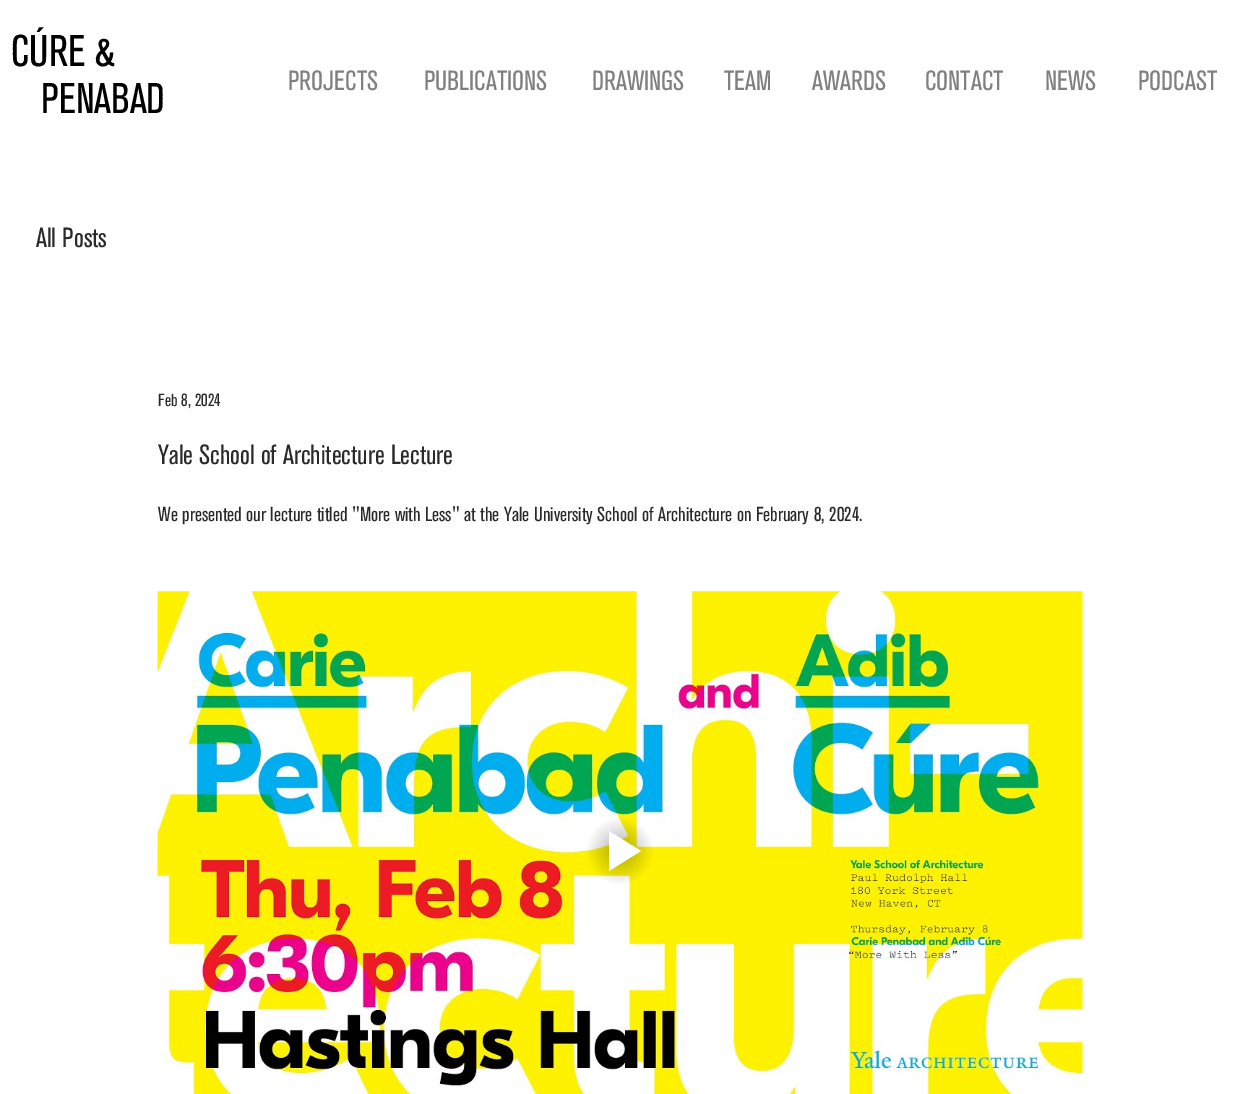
%!PS-Adobe-3.0
%%BoundingBox: 0 0 1247 1094
%%LanguageLevel: 3
%%Pages: 1
%%EndComments
%%BeginProlog
/setink { dup -16 bitshift 255 div exch dup -8 bitshift 255 and 255 div exch 255 and 255 div setrgbcolor } def
/usefont { [ exch dup neg 0 0 3 -1 roll 0 0 ] selectfont } def
/drawimage { 5 dict begin { /h /w /y /x /name } { exch def } forall
  gsave x y translate w h scale
  w h 8 [w 0 0 h 0 0] name (r) file false 3 colorimage grestore end } def
%%EndProlog
%%BeginSetup
<< /PageSize [1247 1094] >> setpagedevice
%%EndSetup
%%Page: 1 1
0 1094 translate 1 -1 scale
4 setmiterlimit
16#FFFFFF setink
0 0 1247 1094 rectfill
/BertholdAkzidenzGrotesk-Regular 44 usefont
16#000000 setink
11 66 moveto (CÚRE &) show
/BertholdAkzidenzGrotesk-Regular 42.5 usefont
41 113 moveto (PENABAD) show
/BertholdAkzidenzGrotesk-Regular 27.5 usefont
16#808080 setink
[
    [(PROJECTS) 288 90]
    [(PUBLICATIONS) 424 90]
    [(DRAWINGS) 592 90]
    [(TEAM) 724 90]
    [(AWARDS) 812 90]
    [(CONTACT) 925 90]
    [(NEWS) 1045 90]
    [(PODCAST) 1138 90]
] { aload pop moveto show } forall
16#2A2A2A setink
36 247 moveto (All Posts) show
/BertholdAkzidenzGrotesk-Regular 17.5 usefont
158 406 moveto (Feb 8, 2024) show
/BertholdAkzidenzGrotesk-Regular 27.5 usefont
158 464 moveto (Yale School of Architecture Lecture) show
/BertholdAkzidenzGrotesk-Regular 20 usefont
158 521 moveto (We presented our lecture titled "More with Less" at the Yale University School of Architecture on February 8, 2024.) show
(img1.raw) 157 591 926 503 drawimage
16#FFFFFF setink
609 871 moveto 609 831 lineto 641 851 lineto closepath fill
showpage
%%EOF
